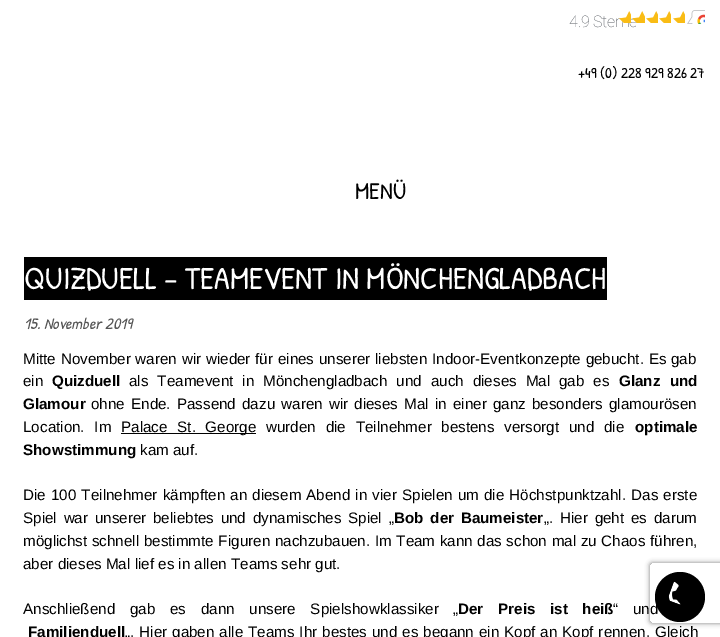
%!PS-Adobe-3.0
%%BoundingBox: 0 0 720 637
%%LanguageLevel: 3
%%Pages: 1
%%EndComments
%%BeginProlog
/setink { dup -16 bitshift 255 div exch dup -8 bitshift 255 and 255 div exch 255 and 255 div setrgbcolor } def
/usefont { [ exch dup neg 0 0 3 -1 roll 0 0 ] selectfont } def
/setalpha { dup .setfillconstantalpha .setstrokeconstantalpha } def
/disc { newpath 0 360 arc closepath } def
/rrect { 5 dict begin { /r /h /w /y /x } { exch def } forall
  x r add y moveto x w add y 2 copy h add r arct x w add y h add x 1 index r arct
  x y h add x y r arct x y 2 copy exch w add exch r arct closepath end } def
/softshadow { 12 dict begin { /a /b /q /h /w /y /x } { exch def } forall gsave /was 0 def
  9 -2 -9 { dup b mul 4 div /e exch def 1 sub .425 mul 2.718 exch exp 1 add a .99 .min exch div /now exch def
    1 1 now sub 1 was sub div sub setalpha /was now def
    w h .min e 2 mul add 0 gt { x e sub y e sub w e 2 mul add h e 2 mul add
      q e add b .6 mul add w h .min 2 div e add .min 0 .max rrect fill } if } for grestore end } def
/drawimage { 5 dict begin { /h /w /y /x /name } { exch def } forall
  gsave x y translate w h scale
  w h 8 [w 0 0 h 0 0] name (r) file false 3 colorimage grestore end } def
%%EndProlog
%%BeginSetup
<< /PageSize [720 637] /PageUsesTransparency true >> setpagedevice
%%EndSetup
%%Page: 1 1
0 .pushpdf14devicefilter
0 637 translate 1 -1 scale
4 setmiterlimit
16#FFFFFF setink
0 0 720 637 rectfill
/Roboto-Thin 16 usefont
16#5F6369 setink
569 27 moveto -1 0 32 (4.9 Sterne) widthshow
(img1.raw) 619 11 12 12 drawimage
(img2.raw) 632 11 13 12 drawimage
(img3.raw) 646 11 12 12 drawimage
(img3.raw) 659 11 12 12 drawimage
(img3.raw) 673 11 12 12 drawimage
(img4.raw) 687 10 18 14 drawimage
/PatrickHand-Regular 15.2 usefont
16#000000 setink
578 78 moveto (+49 \(0\) 228 929 826 27) show
/PatrickHand-Regular 24 usefont
355 199 moveto (MENÜ) show
gsave
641 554 moveto 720 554 lineto 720 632 lineto 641 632 lineto closepath 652 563 moveto 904 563 lineto 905 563 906 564 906 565 curveto 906 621 lineto 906 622 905 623 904 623 curveto 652 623 lineto 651 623 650 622 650 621 curveto 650 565 lineto 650 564 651 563 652 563 curveto closepath eoclip newpath
16#808080 setink
650 563 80 60 2 2.5 1 softshadow
grestore
680 597 25 disc fill
(img5.raw) 668 581 13 24 drawimage
24 257 583 43 rectfill
/PatrickHand-Regular 32 usefont
16#FFFFFF setink
24 289 moveto (QUIZDUELL – TEAMEVENT IN MÖNCHENGLADBACH) show
/PatrickHand-Italic 16 usefont
16#555555 setink
24 329 moveto (15. November 2019) show
/LiberationSans-Regular 15.2 usefont
16#000000 setink
23 364 moveto 0.5 0 32 (Mitte November waren wir wieder für eines unserer liebsten Indoor-Eventkonzepte gebucht. Es gab) widthshow
23 386 moveto (ein) show
/LiberationSans-Bold 15.2 usefont
52 386 moveto (Quizduell) show
/LiberationSans-Regular 15.2 usefont
129 386 moveto 4.75 0 32 (als Teamevent in Mönchengladbach und auch dieses Mal gab es) widthshow
/LiberationSans-Bold 15.2 usefont
619 386 moveto 5 0 32 (Glanz und) widthshow
23 409 moveto (Glamour) show
/LiberationSans-Regular 15.2 usefont
91 409 moveto 1.9 0 32 (ohne Ende. Passend dazu waren wir dieses Mal in einer ganz besonders glamourösen) widthshow
23 432 moveto 5.5 0 32 (Location. Im) widthshow
121 433 135 1 rectfill
121 432 moveto 5.5 0 32 (Palace St. George) widthshow
266 432 moveto 5.5 0 32 (wurden die Teilnehmer bestens versorgt und die) widthshow
/LiberationSans-Bold 15.2 usefont
635 432 moveto (optimale) show
23 455 moveto (Showstimmung) show
/LiberationSans-Regular 15.2 usefont
140 455 moveto (kam auf.) show
23 500 moveto 0.9 0 32 (Die 100 Teilnehmer kämpften an diesem Abend in vier Spielen um die Höchstpunktzahl. Das erste) widthshow
23 523 moveto 2.5 0 32 (Spiel war unserer beliebtes und dynamisches Spiel „) widthshow
/LiberationSans-Bold 15.2 usefont
394 523 moveto 2.5 0 32 (Bob der Baumeister) widthshow
/LiberationSans-Regular 15.2 usefont
544 523 moveto 2.5 0 32 („. Hier geht es darum) widthshow
23 546 moveto 0.4 0 32 (möglichst schnell bestimmte Figuren nachzubauen. Im Team kann das schon mal zu Chaos führen,) widthshow
23 569 moveto (aber dieses Mal lief es in allen Teams sehr gut.) show
23 614 moveto 10.5 0 32 (Anschließend gab es dann unsere Spielshowklassiker „) widthshow
/LiberationSans-Bold 15.2 usefont
458 614 moveto 10.5 0 32 (Der Preis ist heiß) widthshow
/LiberationSans-Regular 15.2 usefont
613 614 moveto 10.5 0 32 (“ und) widthshow
/LiberationSans-Bold 15.2 usefont
28 637 moveto (Familienduell) show
/LiberationSans-Regular 15.2 usefont
125 637 moveto 0.75 0 32 („. Hier gaben alle Teams Ihr bestes und es begann ein Kopf an Kopf rennen. Gleich) widthshow
.poppdf14devicefilter showpage
%%EOF
